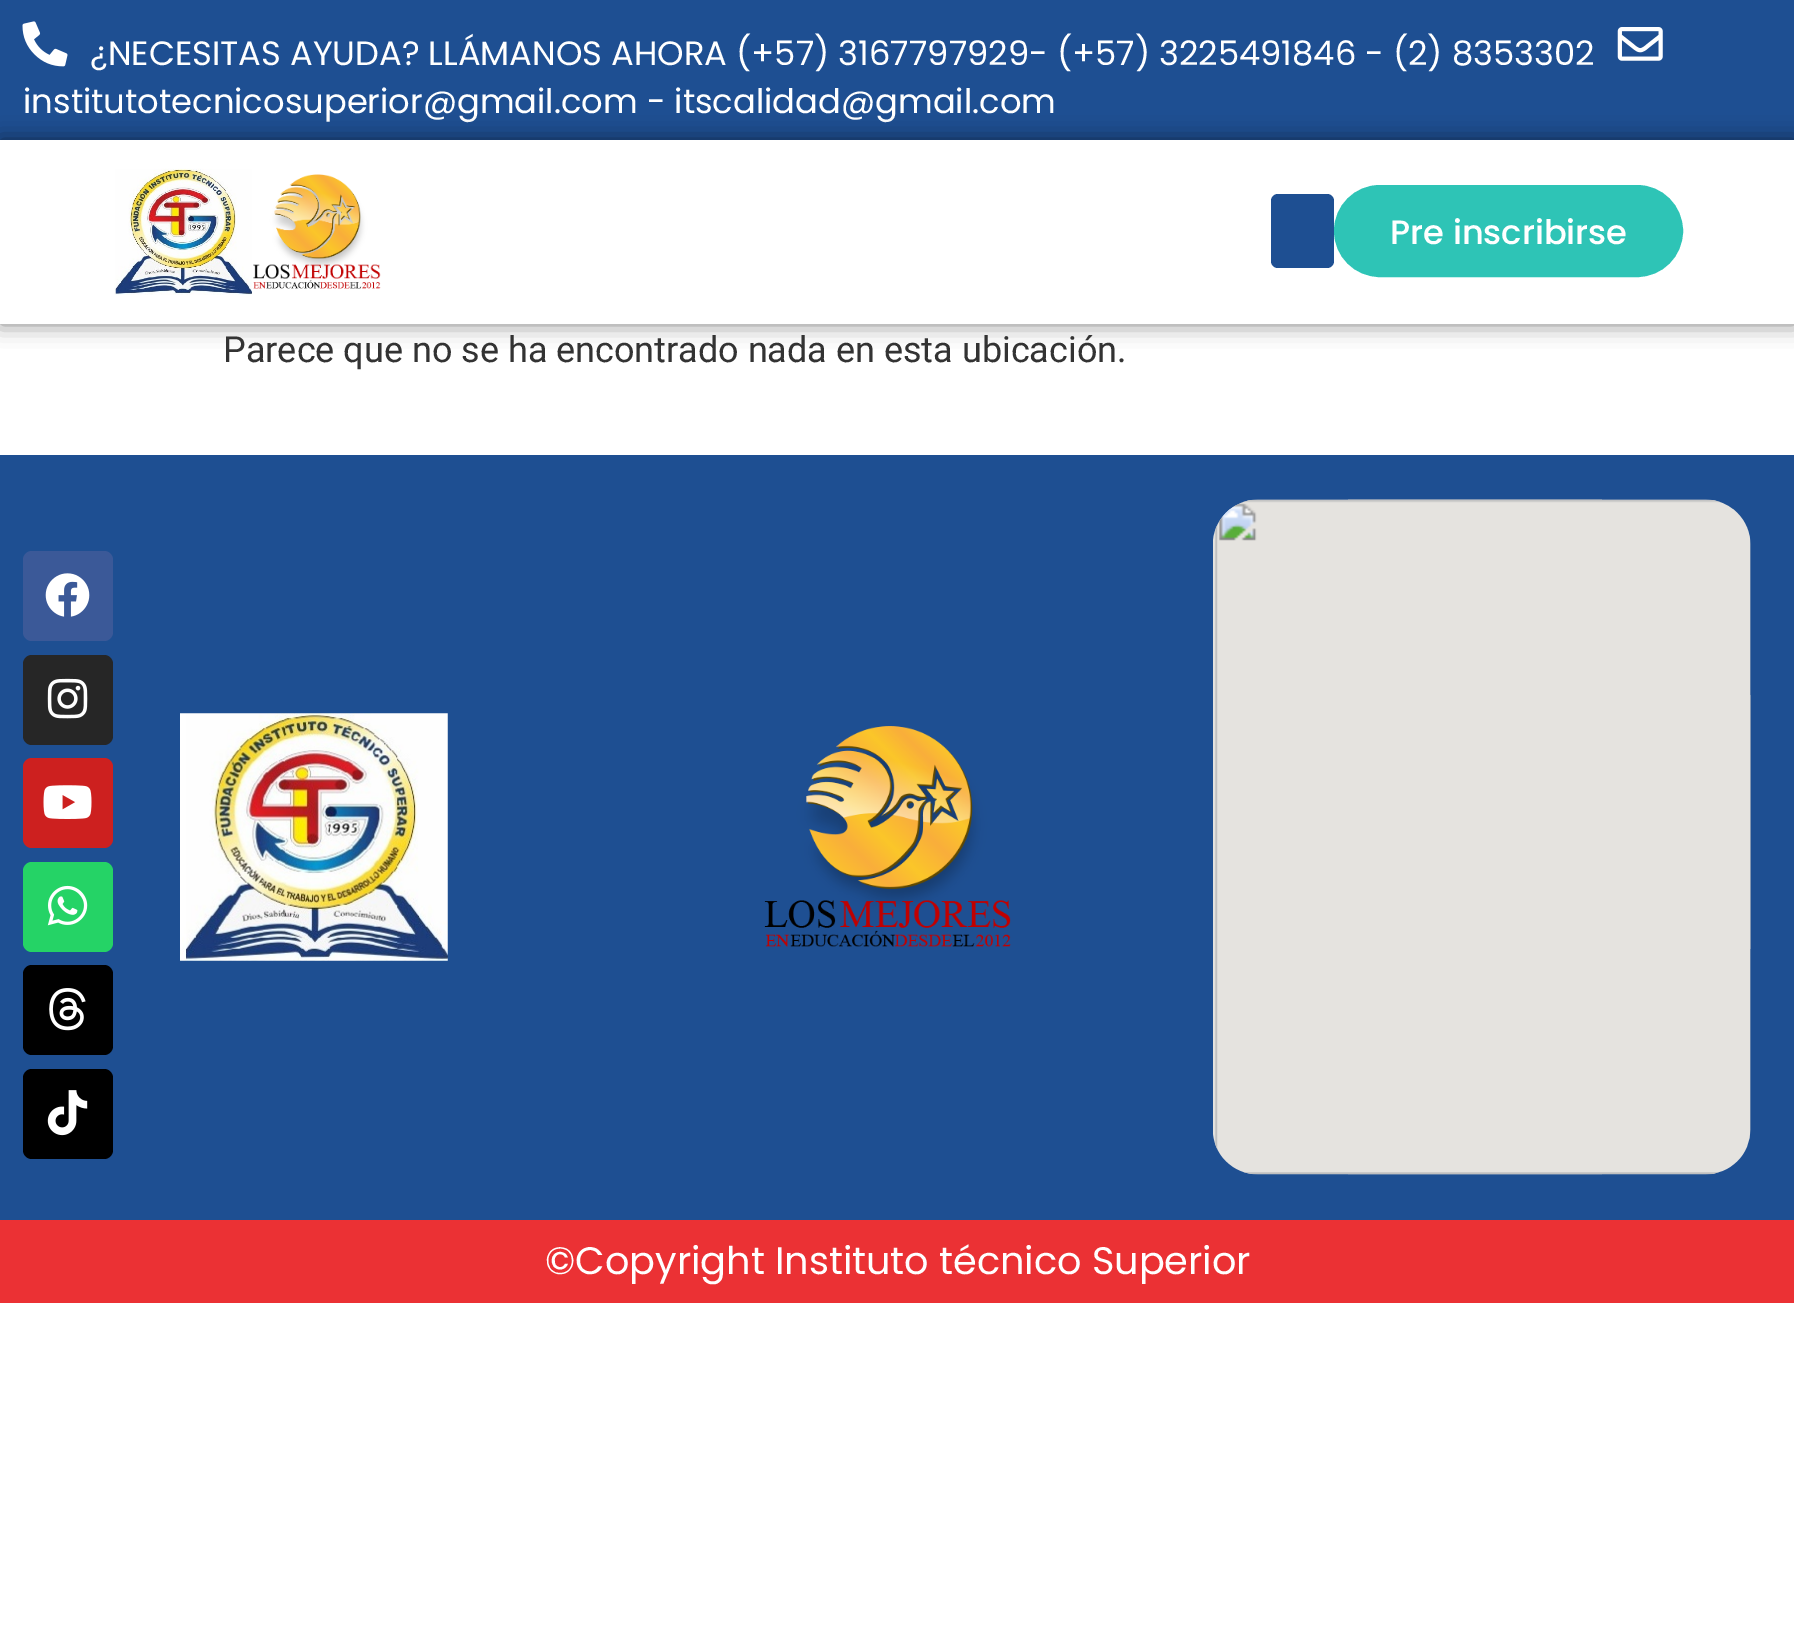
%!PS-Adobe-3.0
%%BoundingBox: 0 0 1794 1652
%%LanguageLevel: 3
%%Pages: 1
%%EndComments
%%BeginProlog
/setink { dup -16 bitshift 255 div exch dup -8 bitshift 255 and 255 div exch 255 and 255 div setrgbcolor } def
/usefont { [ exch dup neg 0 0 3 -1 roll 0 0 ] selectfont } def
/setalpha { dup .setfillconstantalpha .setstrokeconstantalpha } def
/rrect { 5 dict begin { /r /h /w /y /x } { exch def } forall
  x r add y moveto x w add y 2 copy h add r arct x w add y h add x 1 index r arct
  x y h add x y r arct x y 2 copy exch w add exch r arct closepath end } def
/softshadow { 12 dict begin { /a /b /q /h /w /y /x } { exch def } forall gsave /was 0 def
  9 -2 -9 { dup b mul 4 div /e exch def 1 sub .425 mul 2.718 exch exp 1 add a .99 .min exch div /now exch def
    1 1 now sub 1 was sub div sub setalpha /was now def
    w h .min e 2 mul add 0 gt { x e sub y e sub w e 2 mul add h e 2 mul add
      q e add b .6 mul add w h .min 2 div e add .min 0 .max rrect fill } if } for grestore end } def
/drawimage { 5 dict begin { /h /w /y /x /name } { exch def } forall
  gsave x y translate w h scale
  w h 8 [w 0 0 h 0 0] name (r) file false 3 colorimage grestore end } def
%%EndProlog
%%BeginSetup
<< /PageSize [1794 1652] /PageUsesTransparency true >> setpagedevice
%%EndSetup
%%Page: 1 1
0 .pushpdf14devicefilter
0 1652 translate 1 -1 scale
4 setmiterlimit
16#FFFFFF setink
0 0 1794 1652 rectfill
16#1E4F92 setink
0 0 1794 140 rectfill
(img1.raw) 22 21 46 46 drawimage
/Poppins-Regular 33.75 usefont
16#FFFFFF setink
90 65 moveto (¿NECESITAS AYUDA? LLÁMANOS AHORA \(+57\) 3167797929- \(+57\) 3225491846 - \(2\) 8353302) show
(img2.raw) 1617 27 46 34 drawimage
23 113 moveto (institutotecnicosuperior@gmail.com - itscalidad@gmail.com) show
gsave
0 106 moveto 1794 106 lineto 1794 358 lineto 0 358 lineto closepath 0 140 moveto 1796 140 lineto 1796 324 lineto 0 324 lineto closepath eoclip newpath
16#000000 setink
0 140 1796 184 0 11 0.5 softshadow
grestore
(img3.raw) 114 168 138 127 drawimage
(img4.raw) 253 174 128 115 drawimage
16#1E4F92 setink
1271 194 63 74 7 rrect fill
16#2EC4B6 setink
1335 186 347 90 45 rrect gsave fill grestore
2 setlinewidth
stroke
/Poppins-Medium 33.75 usefont
16#FFFFFF setink
1390 244 moveto (Pre inscribirse) show
/Roboto-Regular 36 usefont
16#333333 setink
223 362 moveto (Parece que no se ha encontrado nada en esta ubicación.) show
16#1E4F92 setink
0 455 1794 765 rectfill
(img5.raw) 180 713 268 248 drawimage
(img6.raw) 764 726 247 221 drawimage
(img7.raw) 1213 499 538 676 drawimage
16#3B5998 setink
23 551 90 90 9 rrect fill
(img8.raw) 45 573 45 44 drawimage
16#262626 setink
23 655 90 90 9 rrect fill
(img9.raw) 47 678 41 41 drawimage
16#CD201F setink
23 758 90 90 9 rrect fill
(img10.raw) 43 785 49 34 drawimage
16#25D366 setink
23 862 90 90 9 rrect fill
(img11.raw) 47 885 41 41 drawimage
16#000000 setink
23 965 90 90 9 rrect fill
(img12.raw) 49 988 37 43 drawimage
23 1069 90 90 9 rrect fill
(img13.raw) 47 1090 41 46 drawimage
16#EB3134 setink
0 1220 1794 83 rectfill
/Poppins-Regular 38.25 usefont
16#FFFFFF setink
545 1274 moveto (©Copyright Instituto técnico Superior) show
.poppdf14devicefilter showpage
%%EOF
